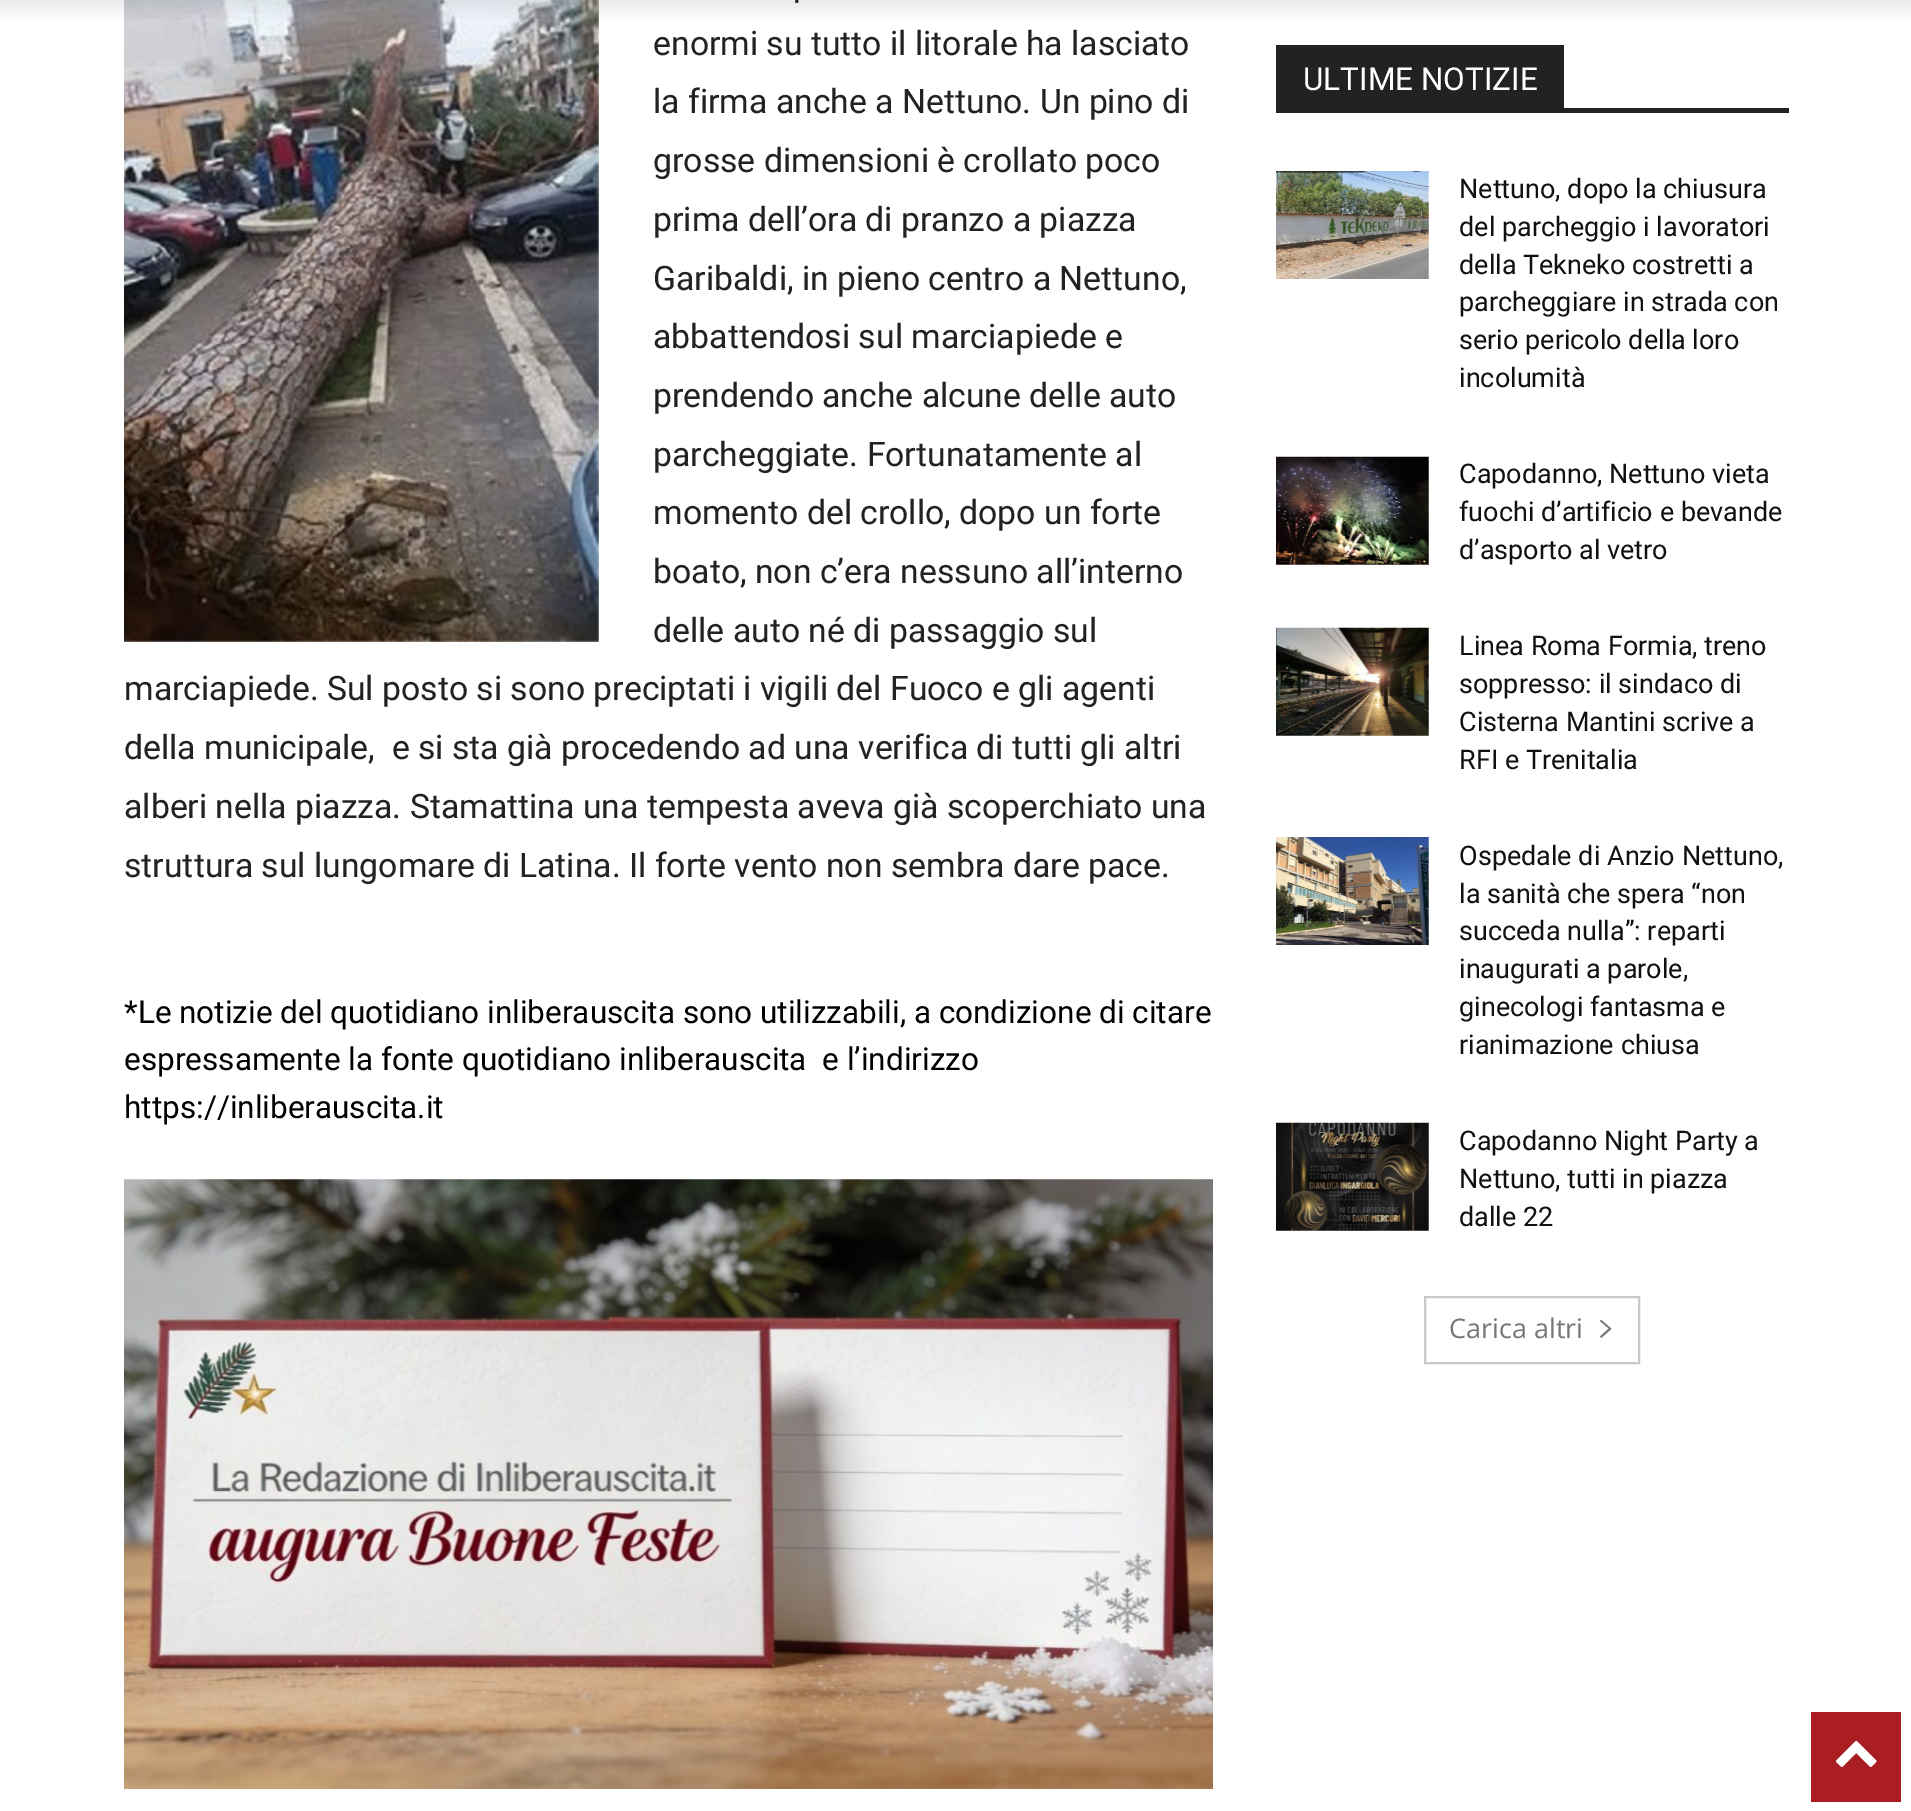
%!PS-Adobe-3.0
%%BoundingBox: 0 0 1911 1811
%%LanguageLevel: 3
%%Pages: 1
%%EndComments
%%BeginProlog
/setink { dup -16 bitshift 255 div exch dup -8 bitshift 255 and 255 div exch 255 and 255 div setrgbcolor } def
/usefont { [ exch dup neg 0 0 3 -1 roll 0 0 ] selectfont } def
/drawimage { 5 dict begin { /h /w /y /x /name } { exch def } forall
  gsave x y translate w h scale
  w h 8 [w 0 0 h 0 0] name (r) file false 3 colorimage grestore end } def
%%EndProlog
%%BeginSetup
<< /PageSize [1911 1811] >> setpagedevice
%%EndSetup
%%Page: 1 1
0 1811 translate 1 -1 scale
4 setmiterlimit
16#FFFFFF setink
0 0 1911 1811 rectfill
(img2.raw) 124 0 475 642 drawimage
(img1.raw) 0 0 1911 19 drawimage
/Roboto-Regular 33.75 usefont
16#222222 setink
[
    [(enormi su tutto il litorale ha lasciato) 653 55]
    [(la firma anche a Nettuno. Un pino di) 653 113]
    [(grosse dimensioni è crollato poco) 653 172]
    [(prima dell’ora di pranzo a piazza) 653 231]
    [(Garibaldi, in pieno centro a Nettuno,) 653 290]
    [(abbattendosi sul marciapiede e) 653 348]
    [(prendendo anche alcune delle auto) 653 407]
    [(parcheggiate. Fortunatamente al) 653 466]
    [(momento del crollo, dopo un forte) 653 524]
    [(boato, non c’era nessuno all’interno) 653 583]
    [(delle auto né di passaggio sul) 653 642]
    [(marciapiede. Sul posto si sono preciptati i vigili del Fuoco e gli agenti) 124 700]
    [(della municipale,  e si sta già procedendo ad una verifica di tutti gli altri) 124 759]
    [(alberi nella piazza. Stamattina una tempesta aveva già scoperchiato una) 124 818]
    [(struttura sul lungomare di Latina. Il forte vento non sembra dare pace.) 124 877]
] { aload pop moveto show } forall
/Roboto-Regular 31.5 usefont
16#000000 setink
[
    [(*Le notizie del quotidiano inliberauscita sono utilizzabili, a condizione di citare) 124 1023]
    [(espressamente la fonte quotidiano inliberauscita  e l’indirizzo) 124 1070]
    [(https://inliberauscita.it) 124 1118]
] { aload pop moveto show } forall
(img3.raw) 124 1179 1089 610 drawimage
16#222222 setink
1276 108 513 5 rectfill
1276 45 288 63 rectfill
16#FFFFFF setink
1303 90 moveto (ULTIME NOTIZIE) show
(img4.raw) 1276 171 153 108 drawimage
/Roboto-Regular 27 usefont
16#111111 setink
[
    [(Nettuno, dopo la chiusura) 1459 198]
    [(del parcheggio i lavoratori) 1459 236]
    [(della Tekneko costretti a) 1459 274]
    [(parcheggiare in strada con) 1459 311]
    [(serio pericolo della loro) 1459 349]
    [(incolumità) 1459 387]
] { aload pop moveto show } forall
(img5.raw) 1276 456 153 109 drawimage
[
    [(Capodanno, Nettuno vieta) 1459 483]
    [(fuochi d’artificio e bevande) 1459 521]
    [(d’asporto al vetro) 1459 559]
] { aload pop moveto show } forall
(img6.raw) 1276 627 153 109 drawimage
[
    [(Linea Roma Formia, treno) 1459 655]
    [(soppresso: il sindaco di) 1459 693]
    [(Cisterna Mantini scrive a) 1459 731]
    [(RFI e Trenitalia) 1459 769]
] { aload pop moveto show } forall
(img7.raw) 1276 837 153 108 drawimage
[
    [(Ospedale di Anzio Nettuno,) 1459 865]
    [(la sanità che spera “non) 1459 903]
    [(succeda nulla”: reparti) 1459 940]
    [(inaugurati a parole,) 1459 978]
    [(ginecologi fantasma e) 1459 1016]
    [(rianimazione chiusa) 1459 1054]
] { aload pop moveto show } forall
(img8.raw) 1276 1122 153 109 drawimage
[
    [(Capodanno Night Party a) 1459 1150]
    [(Nettuno, tutti in piazza) 1459 1188]
    [(dalle 22) 1459 1226]
] { aload pop moveto show } forall
16#C9C9C9 setink
2 setlinewidth
1425 1297 214 66 rectstroke
/OpenSans-Regular 27 usefont
16#767676 setink
1449 1338 moveto (Carica altri) show
(img9.raw) 1600 1320 12 18 drawimage
16#AA1E22 setink
1811 1712 90 90 rectfill
(img10.raw) 1836 1741 41 26 drawimage
showpage
%%EOF
